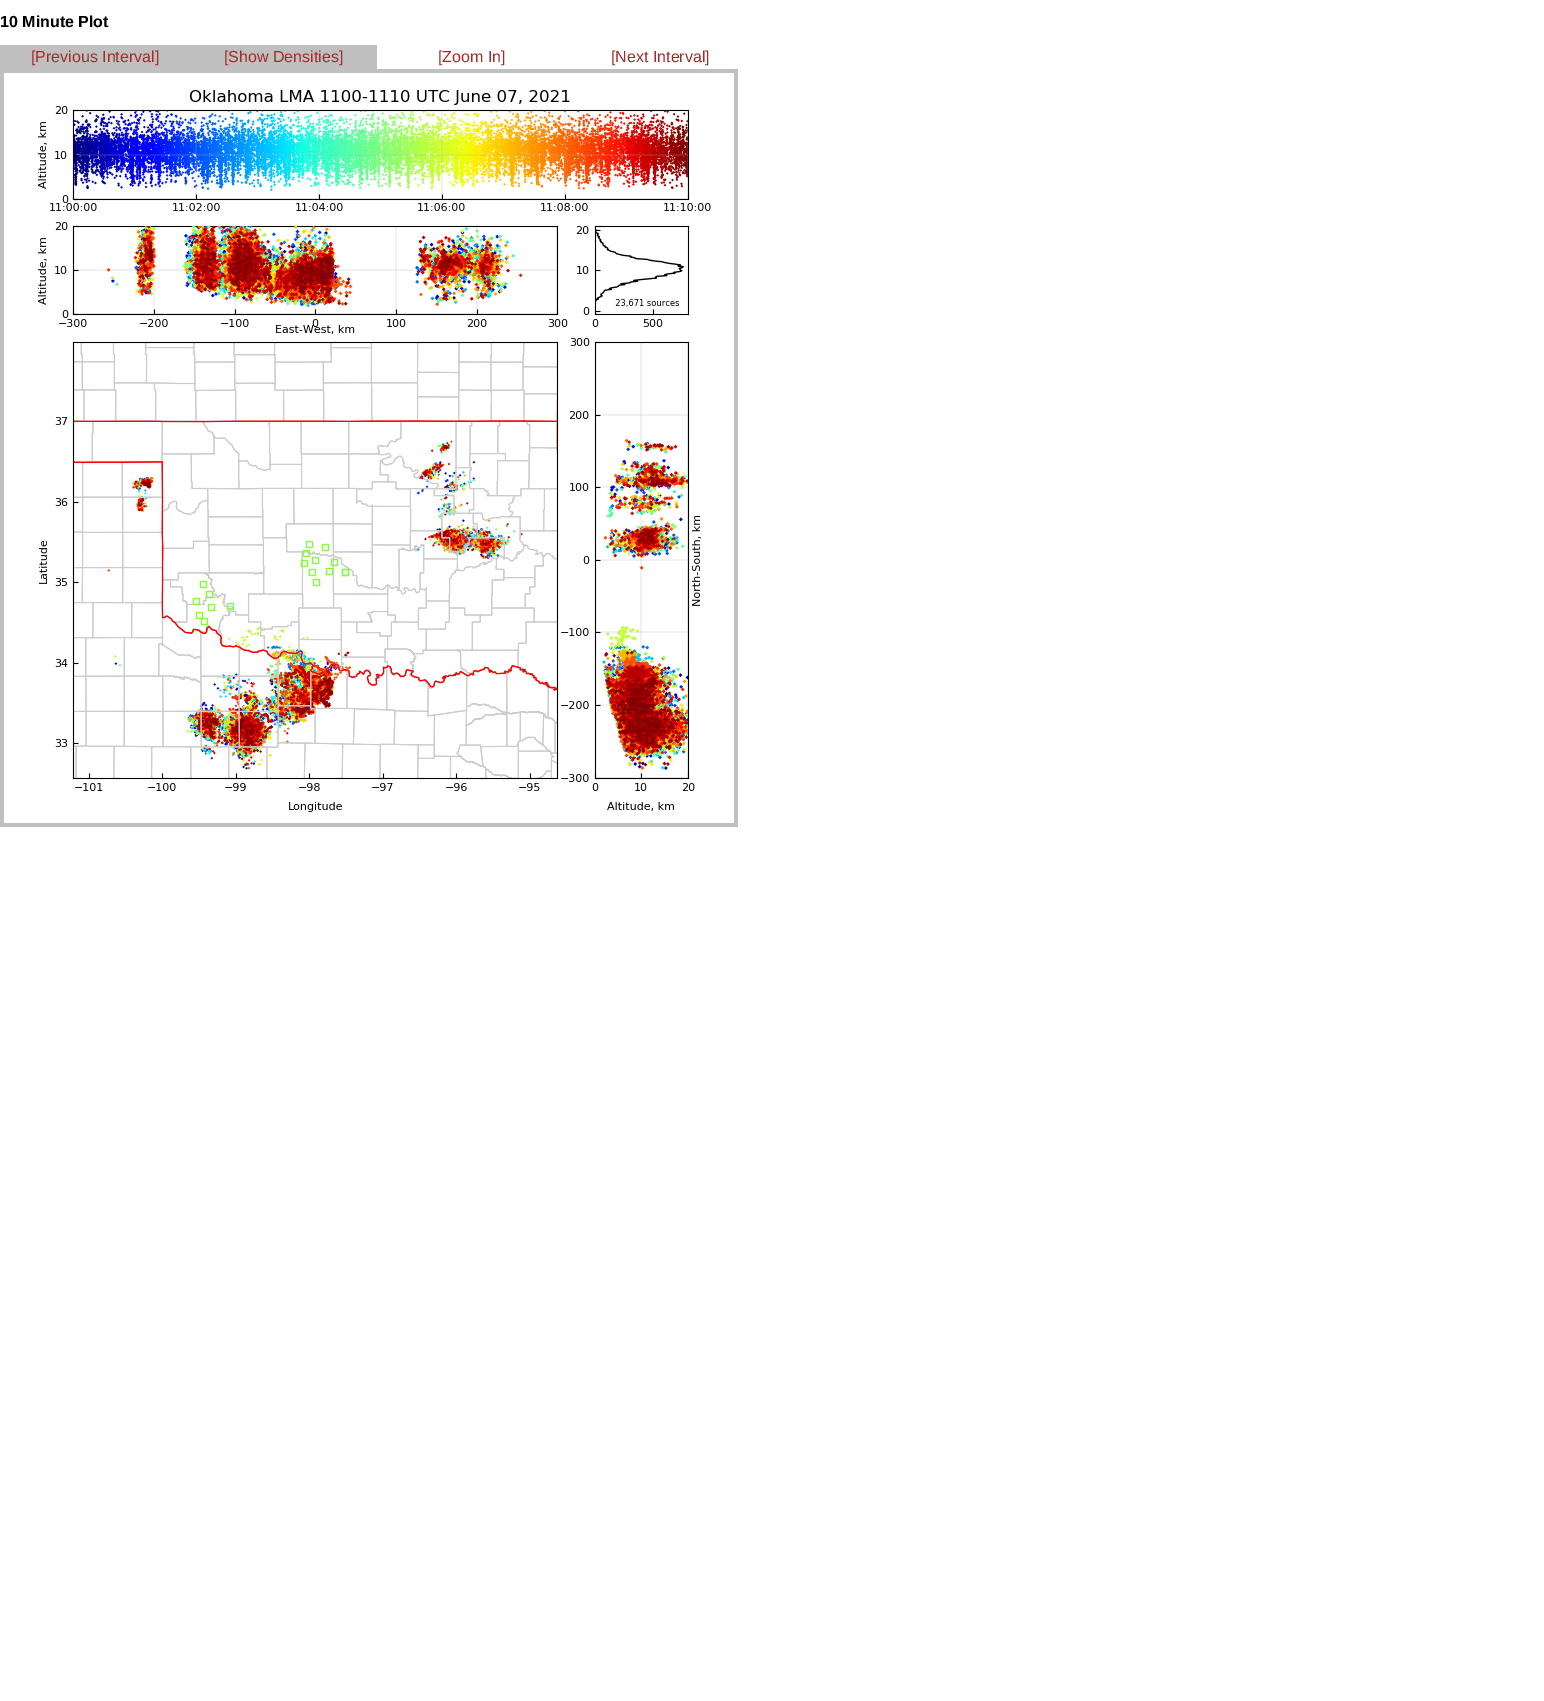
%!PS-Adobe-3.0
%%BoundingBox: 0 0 1544 1701
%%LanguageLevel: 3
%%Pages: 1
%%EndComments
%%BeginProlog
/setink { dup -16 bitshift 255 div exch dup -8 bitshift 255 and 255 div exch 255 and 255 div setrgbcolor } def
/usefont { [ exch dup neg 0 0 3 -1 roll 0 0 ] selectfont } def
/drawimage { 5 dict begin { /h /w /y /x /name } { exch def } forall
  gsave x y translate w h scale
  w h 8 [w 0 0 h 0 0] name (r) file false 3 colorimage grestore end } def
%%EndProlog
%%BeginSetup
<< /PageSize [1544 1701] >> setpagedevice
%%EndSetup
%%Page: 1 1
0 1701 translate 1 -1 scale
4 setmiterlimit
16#FFFFFF setink
0 0 1544 1701 rectfill
/LiberationSans-Bold 16 usefont
16#000000 setink
0 27 moveto (10 Minute Plot) show
16#C0C0C0 setink
0 45 377 24 rectfill
/LiberationSans-Regular 16 usefont
16#A52A2A setink
[
    [([Previous Interval]) 31 62]
    [([Show Densities]) 224 62]
    [([Zoom In]) 438 62]
    [([Next Interval]) 611 62]
] { aload pop moveto show } forall
(img1.raw) 0 69 738 758 drawimage
showpage
%%EOF
